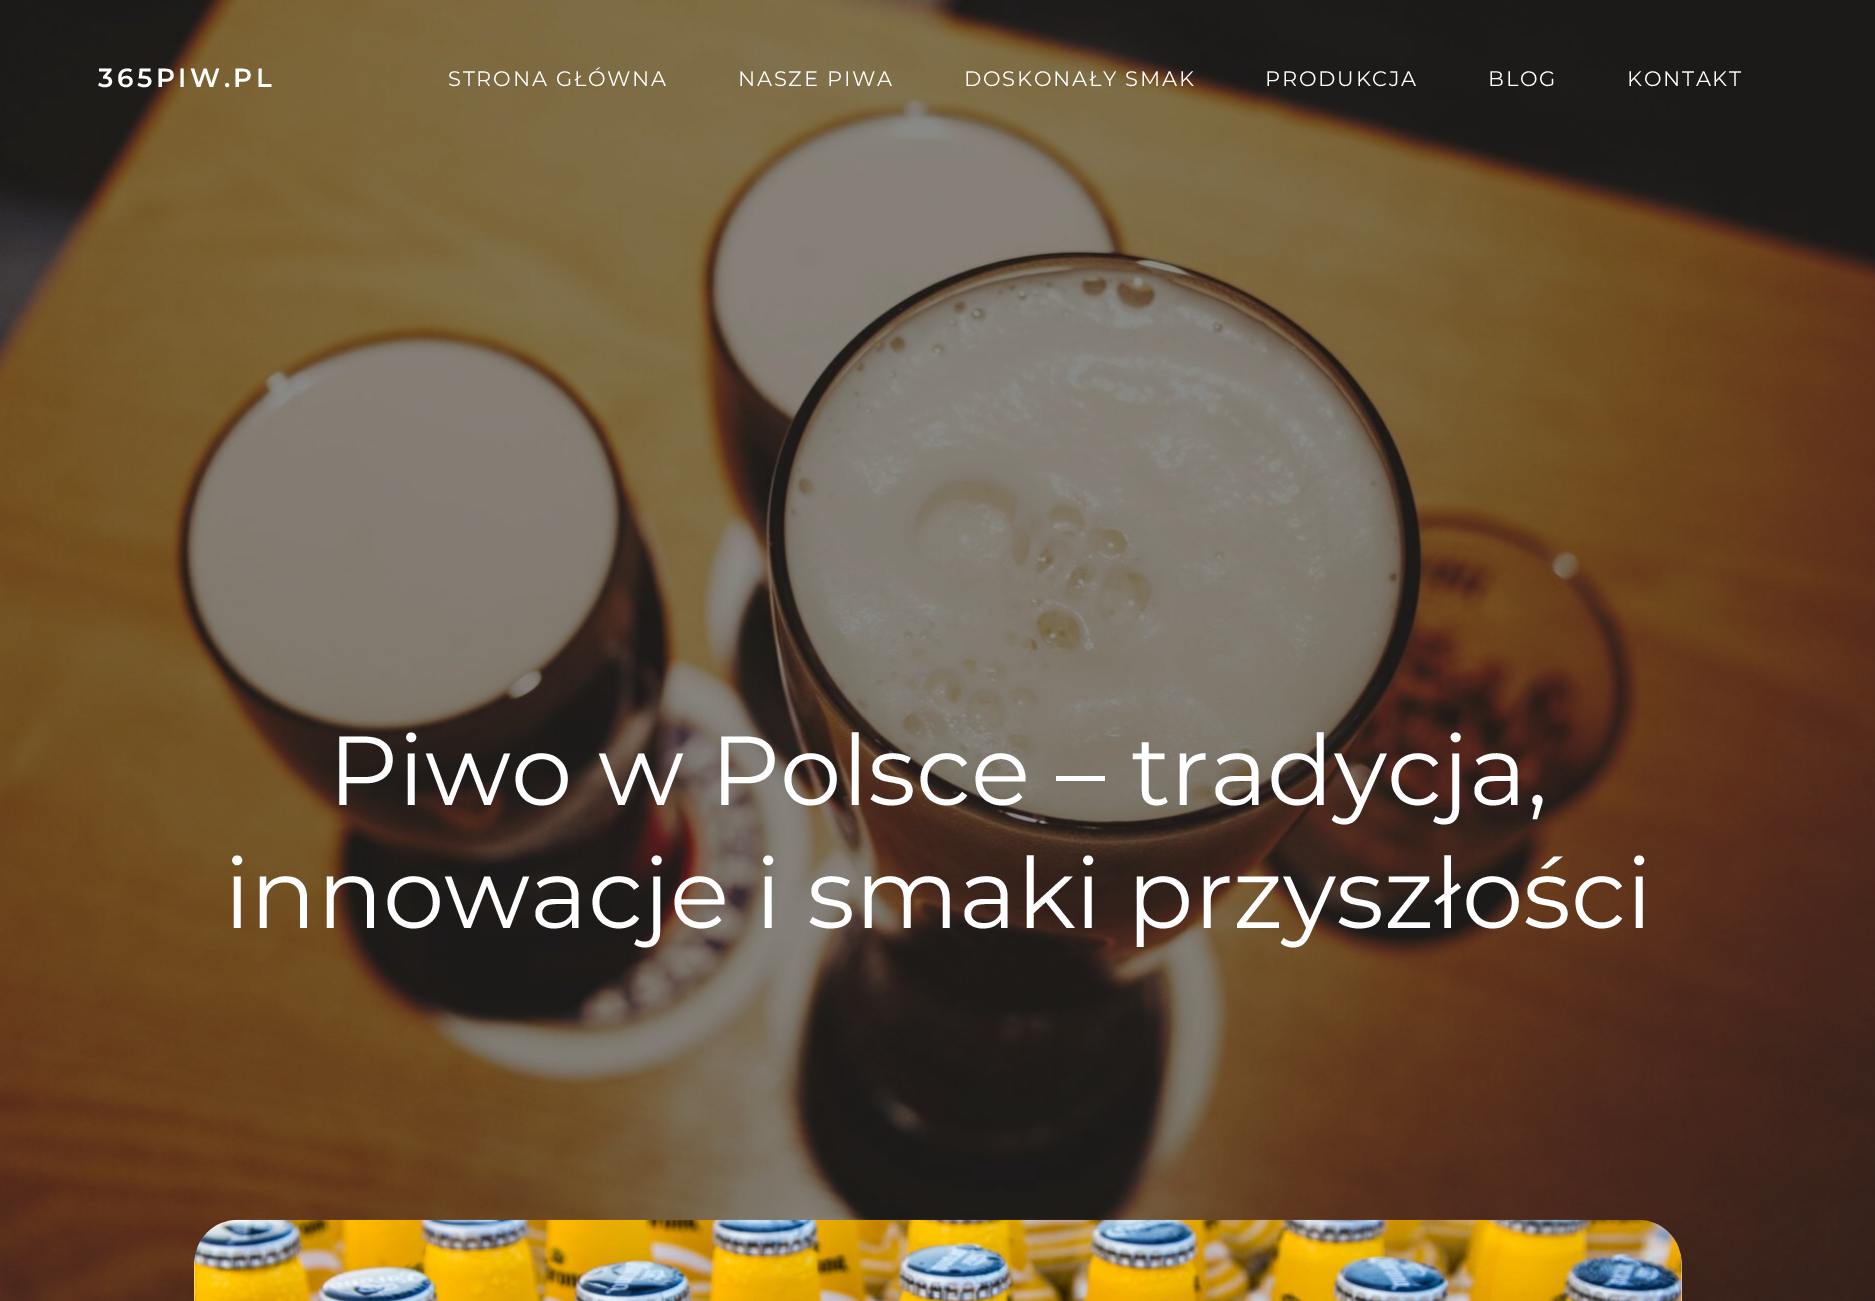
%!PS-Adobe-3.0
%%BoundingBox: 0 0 1875 1301
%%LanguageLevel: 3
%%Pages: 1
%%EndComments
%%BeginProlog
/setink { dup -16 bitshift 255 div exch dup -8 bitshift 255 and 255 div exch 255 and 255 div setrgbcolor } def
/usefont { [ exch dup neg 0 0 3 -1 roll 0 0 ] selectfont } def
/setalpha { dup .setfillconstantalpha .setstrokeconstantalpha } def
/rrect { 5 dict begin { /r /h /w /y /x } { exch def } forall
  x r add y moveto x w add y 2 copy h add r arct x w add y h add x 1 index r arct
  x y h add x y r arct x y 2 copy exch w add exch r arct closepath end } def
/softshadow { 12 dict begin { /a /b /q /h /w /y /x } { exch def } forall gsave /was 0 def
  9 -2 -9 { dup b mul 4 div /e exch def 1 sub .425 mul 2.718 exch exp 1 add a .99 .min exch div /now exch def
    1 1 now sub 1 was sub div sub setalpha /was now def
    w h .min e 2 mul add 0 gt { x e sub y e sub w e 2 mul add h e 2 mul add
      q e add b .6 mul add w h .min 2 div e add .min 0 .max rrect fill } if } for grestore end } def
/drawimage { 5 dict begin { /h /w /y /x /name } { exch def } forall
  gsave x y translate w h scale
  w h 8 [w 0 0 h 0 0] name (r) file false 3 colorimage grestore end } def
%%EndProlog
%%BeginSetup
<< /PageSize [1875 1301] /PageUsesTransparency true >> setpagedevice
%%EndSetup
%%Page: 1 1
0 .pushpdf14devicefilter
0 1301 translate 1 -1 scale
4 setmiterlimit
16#FFFFFF setink
0 0 1875 1301 rectfill
(img1.raw) 0 0 1875 1301 drawimage
/Montserrat-SemiBold 26.25 usefont
98 87 moveto 3.5 0 (365PIW.PL) ashow
/Montserrat-Regular 21 usefont
448 86 moveto 1.75 0 (STRONA GŁÓWNA) ashow
738 86 moveto 1.75 0 (NASZE PIWA) ashow
964 86 moveto 1.75 0 (DOSKONAŁY SMAK) ashow
1265 86 moveto 1.75 0 (PRODUKCJA) ashow
1488 86 moveto 1.75 0 (BLOG) ashow
1627 86 moveto 1.75 0 (KONTAKT) ashow
/Montserrat-Regular 98 usefont
328 805 moveto (Piwo w Polsce – tradycja,) show
224 928 moveto (innowacje i smaki przyszłości) show
gsave
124 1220 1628 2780 rectclip
16#000000 setink
191 1251 1494 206 51 35 0.15 softshadow
grestore
gsave 241 1220 moveto 1635 1220 lineto 1661 1220 1682 1241 1682 1267 curveto 1682 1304 lineto 1682 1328.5 1662.5 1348 1638 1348 curveto 238 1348 lineto 213.5 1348 194 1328.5 194 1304 curveto 194 1267 lineto 194 1241 215 1220 241 1220 curveto closepath clip newpath
<< /ShadingType 2 /ColorSpace /DeviceRGB /Coords [114 1276 1762 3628] /Extend [true true] /Function << /FunctionType 3 /Domain [0 1] /Functions [<< /FunctionType 2 /Domain [0 1] /C0 [1 1 1] /C1 [1 1 1] /N 1 >> << /FunctionType 2 /Domain [0 1] /C0 [1 1 1] /C1 [0.953 0.953 0.953] /N 1 >>] /Bounds [0.42] /Encode [0 1 0 1] >> >> shfill grestore
(img2.raw) 194 1219 1488 82 drawimage
.poppdf14devicefilter showpage
%%EOF
